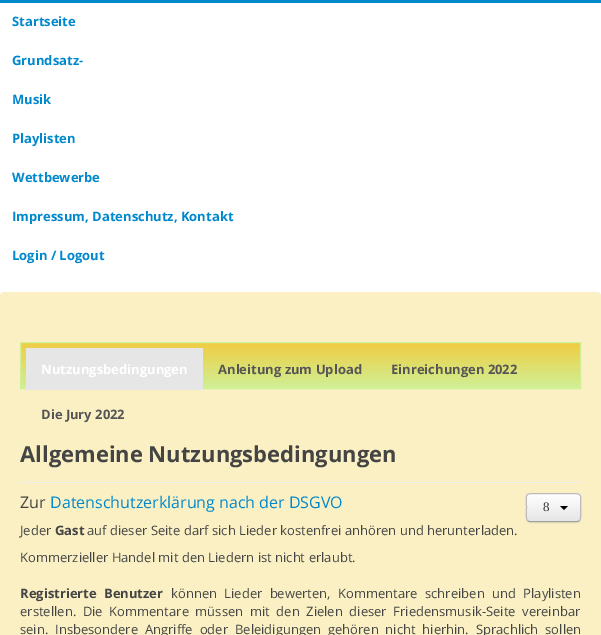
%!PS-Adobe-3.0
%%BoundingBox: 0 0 601 635
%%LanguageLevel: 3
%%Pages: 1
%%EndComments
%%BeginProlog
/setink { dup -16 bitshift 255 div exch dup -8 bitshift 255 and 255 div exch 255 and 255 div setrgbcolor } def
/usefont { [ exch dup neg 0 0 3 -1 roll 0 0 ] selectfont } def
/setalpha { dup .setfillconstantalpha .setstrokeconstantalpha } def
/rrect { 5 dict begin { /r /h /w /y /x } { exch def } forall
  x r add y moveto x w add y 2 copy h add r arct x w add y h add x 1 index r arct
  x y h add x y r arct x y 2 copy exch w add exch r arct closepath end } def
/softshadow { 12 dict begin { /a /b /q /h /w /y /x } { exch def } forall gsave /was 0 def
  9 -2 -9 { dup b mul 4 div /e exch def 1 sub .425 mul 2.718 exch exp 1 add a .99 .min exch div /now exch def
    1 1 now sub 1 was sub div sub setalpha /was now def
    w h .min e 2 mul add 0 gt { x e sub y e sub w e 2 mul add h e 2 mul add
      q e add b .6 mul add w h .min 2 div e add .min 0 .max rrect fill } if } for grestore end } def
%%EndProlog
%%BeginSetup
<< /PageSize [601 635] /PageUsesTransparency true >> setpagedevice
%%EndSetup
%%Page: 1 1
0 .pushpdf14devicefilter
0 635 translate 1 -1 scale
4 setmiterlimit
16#FFFFFF setink
0 0 601 635 rectfill
16#0088CC setink
0 0 601 3 rectfill
/OpenSans-Bold 13 usefont
[
    [(Startseite) 12 26]
    [(Grundsatz-) 12 65]
    [(Musik) 12 104]
    [(Playlisten) 12 143]
    [(Wettbewerbe) 12 182]
    [(Impressum, Datenschutz, Kontakt) 12 221]
    [(Login / Logout) 12 260]
] { aload pop moveto show } forall
16#FAF0C3 setink
0 292 601 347 4 rrect fill
gsave 21 343 moveto 580 343 lineto 580 388 lineto 21 388 lineto closepath clip newpath
<< /ShadingType 2 /ColorSpace /DeviceRGB /Coords [301 343 301 388] /Extend [true true] /Function << /FunctionType 2 /Domain [0 1] /C0 [0.941 0.804 0.263] /C1 [0.812 0.941 0.584] /N 1 >> >> shfill grestore
16#CFF095 setink
20.5 342.5 560 46 rectstroke
16#E6E6E6 setink
26 348 177 42 rectfill
16#FFFFFF setink
41 374 moveto (Nutzungsbedingungen) show
16#555555 setink
[
    [(Anleitung zum Upload) 218 374]
    [(Einreichungen 2022) 391 374]
    [(Die Jury 2022) 41 419]
] { aload pop moveto show } forall
16#EEEEEE setink
20 482 561 1 rectfill
/OpenSans-Bold 22 usefont
16#444444 setink
20 462 moveto (Allgemeine Nutzungsbedingungen) show
/OpenSans-Regular 16 usefont
20 508 moveto (Zur) show
16#0088CC setink
50 508 moveto (Datenschutzerklärung nach der DSGVO) show
/OpenSans-Regular 13 usefont
16#444444 setink
20 535 moveto (Jeder) show
/OpenSans-Bold 13 usefont
55 535 moveto (Gast) show
/OpenSans-Regular 13 usefont
87 535 moveto (auf dieser Seite darf sich Lieder kostenfrei anhören und herunterladen.) show
20 562 moveto (Kommerzieller Handel mit den Liedern ist nicht erlaubt.) show
/OpenSans-Bold 13 usefont
20 598 moveto 4 0 32 (Registrierte Benutzer) widthshow
/OpenSans-Regular 13 usefont
171 598 moveto 4 0 32 (können Lieder bewerten, Kommentare schreiben und Playlisten) widthshow
20 616 moveto 3.25 0 32 (erstellen. Die Kommentare müssen mit den Zielen dieser Friedensmusik-Seite vereinbar) widthshow
20 634 moveto 3.5 0 32 (sein. Insbesondere Angriffe oder Beleidigungen gehören nicht hierhin. Sprachlich sollen) widthshow
16#000000 setink
526 494 55 29 4 1 0.05 softshadow
16#F5F5F5 setink
526 493 55 29 4 rrect fill
gsave
526 493 55 29 4 rrect clip newpath
gsave 526 494 moveto 581 494 lineto 581 521 lineto 526 521 lineto closepath clip newpath
<< /ShadingType 2 /ColorSpace /DeviceRGB /Coords [554 494 554 521] /Extend [true true] /Function << /FunctionType 2 /Domain [0 1] /C0 [1 1 1] /C1 [0.902 0.902 0.902] /N 1 >> >> shfill grestore
grestore
16#FFFFFF setink
530 495 moveto 577 495 lineto 579 495 580 496 580 498 curveto 580 492 574 494 569 494 curveto 538 494 lineto 533 494 527 492 527 498 curveto 527 496 528 495 530 495 curveto closepath fill
16#A2A2A2 setink
579.5 520.5 moveto 579 521 578 521.5 577 521.5 curveto 530 521.5 lineto 529 521.5 528 521 527.5 520.5 curveto stroke
16#BBBBBB setink
527.5 520.5 moveto 525.5 518.5 526.5 510 526.5 507.5 curveto 526.5 493 524 493.5 538 493.5 curveto 569 493.5 lineto 583 493.5 580.5 493 580.5 507.5 curveto 580.5 510 581.5 518.5 579.5 520.5 curveto stroke
/LiberationSerif-Regular 13 usefont
16#333333 setink
543 511 moveto (8) show
16#000000 setink
560 506 moveto 568 506 lineto 564 510 lineto closepath fill
.poppdf14devicefilter showpage
%%EOF
